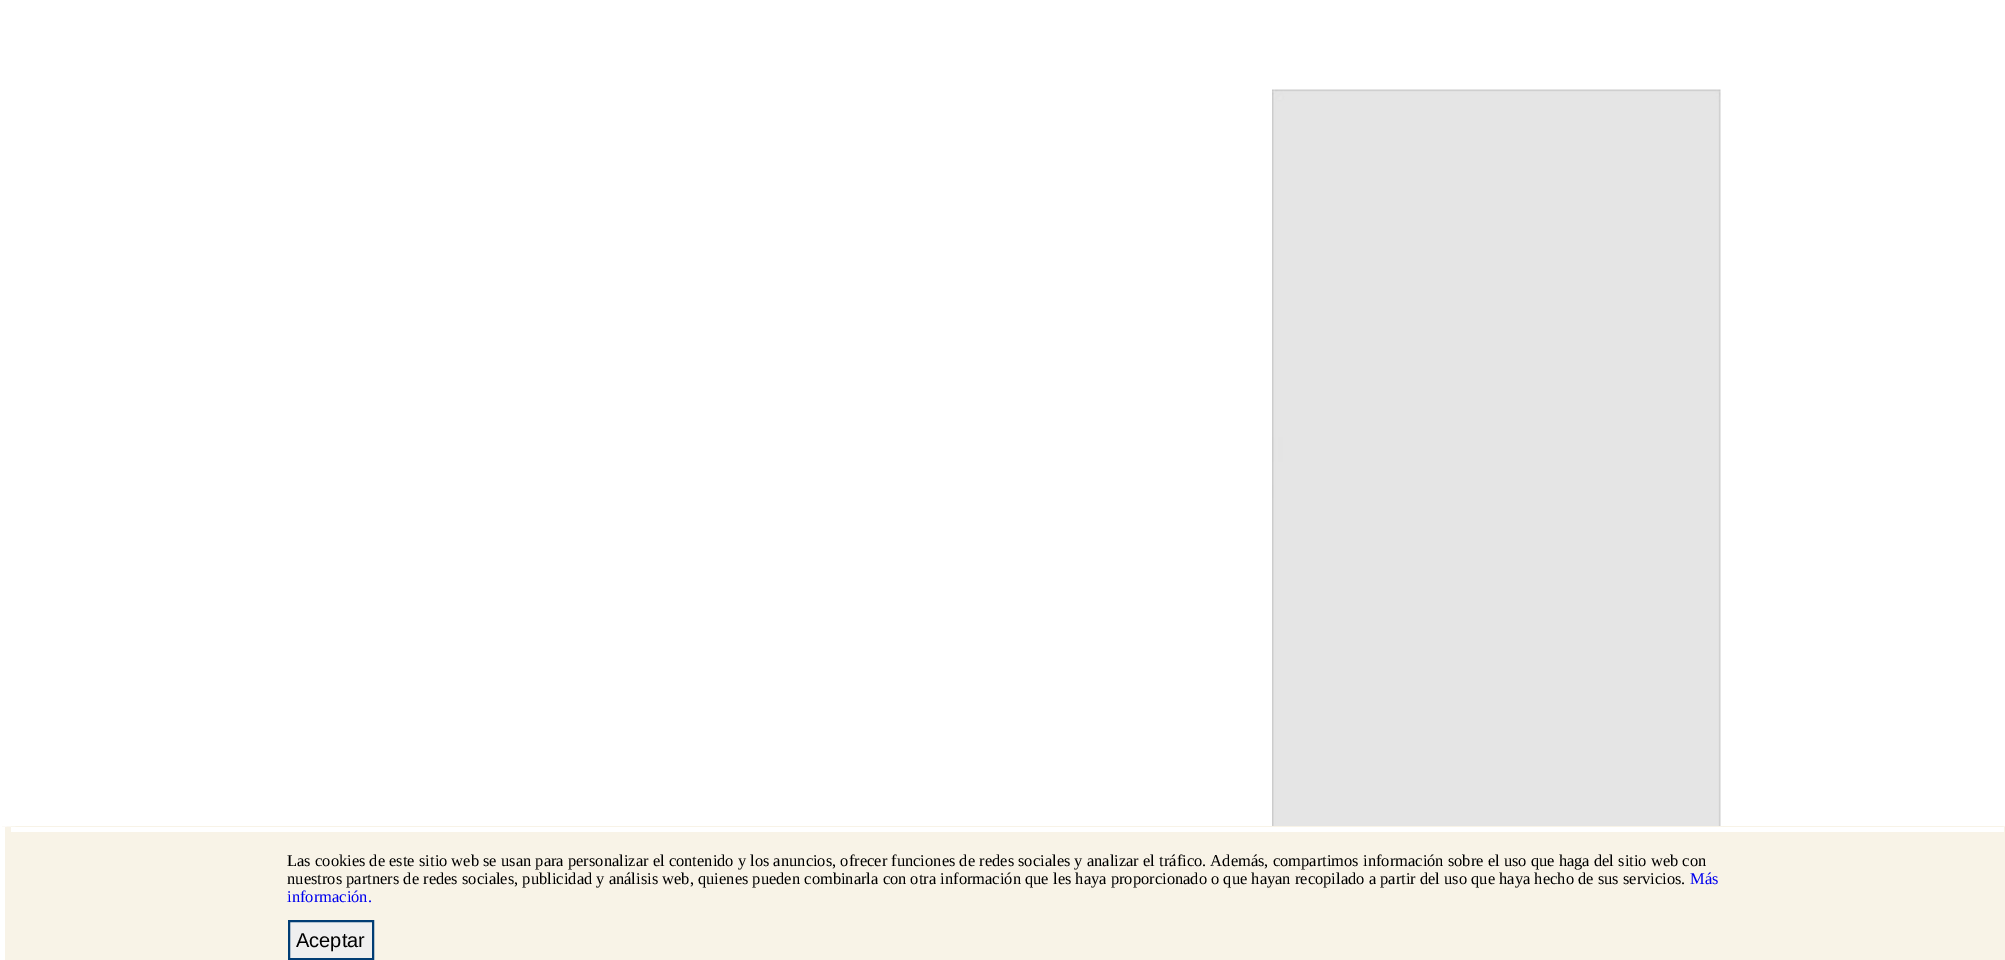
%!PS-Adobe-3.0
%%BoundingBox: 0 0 2005 960
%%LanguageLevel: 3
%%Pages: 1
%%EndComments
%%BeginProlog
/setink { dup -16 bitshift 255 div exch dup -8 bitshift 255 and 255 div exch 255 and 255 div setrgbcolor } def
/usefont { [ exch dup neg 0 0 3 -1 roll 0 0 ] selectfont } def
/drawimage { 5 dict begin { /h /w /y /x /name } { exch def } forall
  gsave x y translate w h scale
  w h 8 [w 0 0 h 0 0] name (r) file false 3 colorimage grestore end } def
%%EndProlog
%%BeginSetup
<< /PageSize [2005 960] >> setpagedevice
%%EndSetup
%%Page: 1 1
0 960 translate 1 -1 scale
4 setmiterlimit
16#FFFFFF setink
0 0 2005 960 rectfill
(img1.raw) 1272 89 449 737 drawimage
16#F8F3E7 setink
20 826 moveto 1994 826 lineto 2005 826 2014 827 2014 828 curveto 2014 960 lineto 0 960 lineto 0 828 lineto 2 827 lineto closepath fill
16#FFFFFF setink
11 827 1993 5 rectfill
0 827 5 133 rectfill
/LiberationSerif-Regular 16.5 usefont
16#000000 setink
287 866 moveto (Las cookies de este sitio web se usan para personalizar el contenido y los anuncios, ofrecer funciones de redes sociales y analizar el tráfico. Además, compartimos información sobre el uso que haga del sitio web con) show
287 884 moveto (nuestros partners de redes sociales, publicidad y análisis web, quienes pueden combinarla con otra información que les haya proporcionado o que hayan recopilado a partir del uso que haya hecho de sus servicios.) show
16#0000EE setink
1690 884 moveto (Más) show
287 902 moveto (información.) show
16#EFEFEF setink
289 921 moveto 373 921 lineto 373 959 lineto 289 959 lineto closepath gsave fill grestore
16#003C74 setink
2 setlinewidth
stroke
/LiberationSans-Regular 20 usefont
16#000000 setink
296 947 moveto (Aceptar) show
showpage
%%EOF
